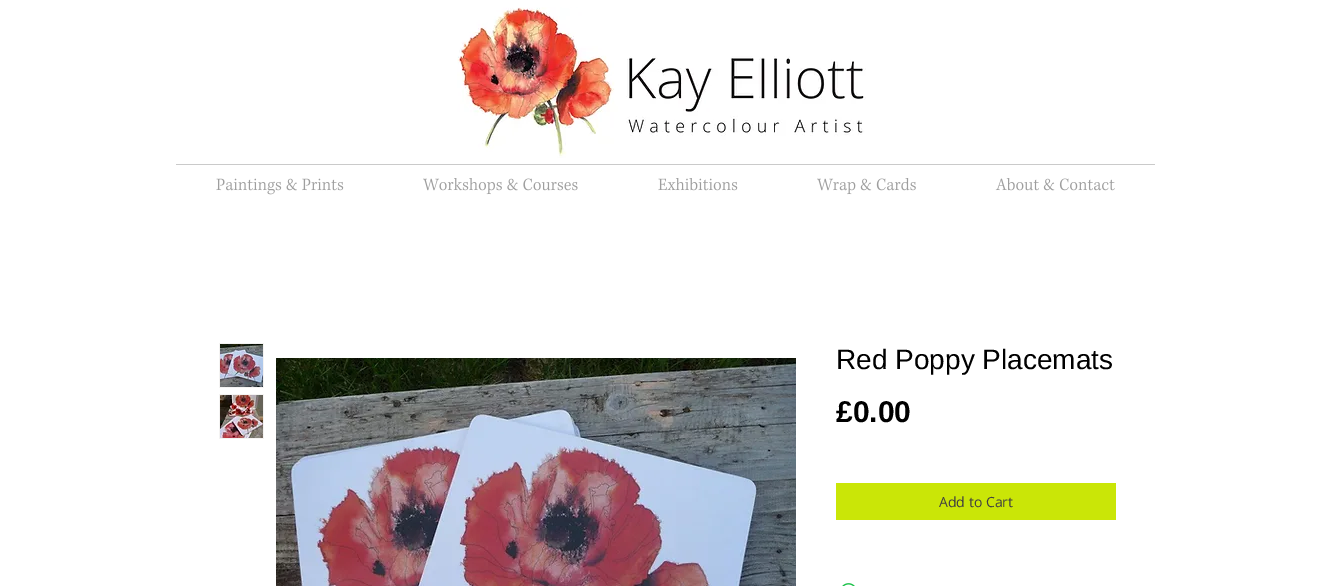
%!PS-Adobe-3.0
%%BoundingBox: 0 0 1332 586
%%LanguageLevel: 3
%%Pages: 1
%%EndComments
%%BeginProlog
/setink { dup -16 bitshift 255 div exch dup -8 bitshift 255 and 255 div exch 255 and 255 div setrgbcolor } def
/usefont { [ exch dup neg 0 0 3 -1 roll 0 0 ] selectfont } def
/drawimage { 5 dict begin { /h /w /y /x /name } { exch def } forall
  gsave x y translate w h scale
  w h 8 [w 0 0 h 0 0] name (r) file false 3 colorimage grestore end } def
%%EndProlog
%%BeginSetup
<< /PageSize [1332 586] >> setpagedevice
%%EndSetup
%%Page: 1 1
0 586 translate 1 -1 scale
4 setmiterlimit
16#FFFFFF setink
0 0 1332 586 rectfill
(img1.raw) 457 7 409 151 drawimage
16#CACACA setink
176 164 979 1 rectfill
(img2.raw) 216 178 128 17 drawimage
(img3.raw) 423 178 155 17 drawimage
(img4.raw) 658 178 80 13 drawimage
(img5.raw) 817 178 99 17 drawimage
(img6.raw) 995 178 120 13 drawimage
16#F4F3F2 setink
219 343 45 45 rectfill
(img7.raw) 220 344 43 43 drawimage
219 394 45 45 rectfill
(img8.raw) 220 395 43 43 drawimage
(img9.raw) 276 358 520 228 drawimage
/LiberationSans-Regular 28 usefont
16#000000 setink
836 369 moveto (Red Poppy Placemats) show
/LiberationSans-Bold 30 usefont
836 422 moveto (£0.00) show
16#CAE607 setink
836 483 280 37 rectfill
/OpenSans-Regular 14 usefont
16#414141 setink
939 507 moveto (Add to Cart) show
(img10.raw) 842 583 13 3 drawimage
showpage
%%EOF
